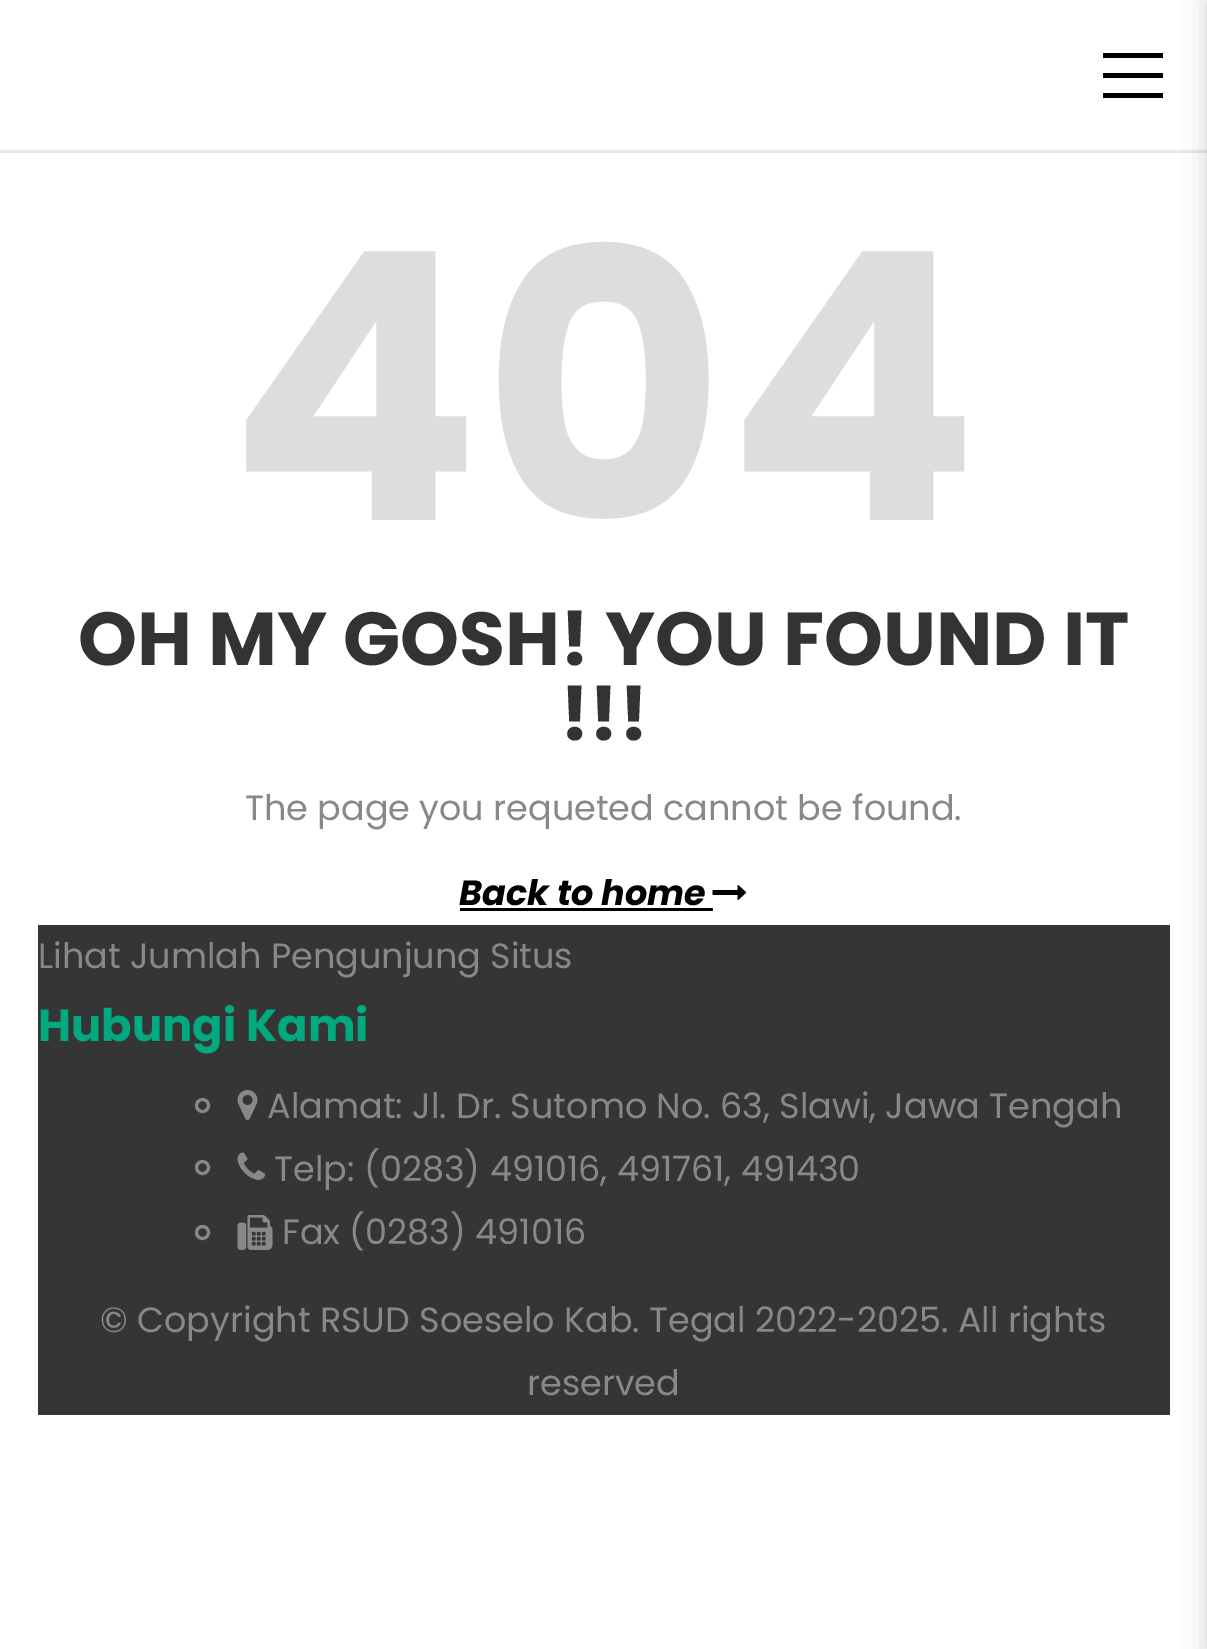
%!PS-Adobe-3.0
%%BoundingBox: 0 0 1207 1649
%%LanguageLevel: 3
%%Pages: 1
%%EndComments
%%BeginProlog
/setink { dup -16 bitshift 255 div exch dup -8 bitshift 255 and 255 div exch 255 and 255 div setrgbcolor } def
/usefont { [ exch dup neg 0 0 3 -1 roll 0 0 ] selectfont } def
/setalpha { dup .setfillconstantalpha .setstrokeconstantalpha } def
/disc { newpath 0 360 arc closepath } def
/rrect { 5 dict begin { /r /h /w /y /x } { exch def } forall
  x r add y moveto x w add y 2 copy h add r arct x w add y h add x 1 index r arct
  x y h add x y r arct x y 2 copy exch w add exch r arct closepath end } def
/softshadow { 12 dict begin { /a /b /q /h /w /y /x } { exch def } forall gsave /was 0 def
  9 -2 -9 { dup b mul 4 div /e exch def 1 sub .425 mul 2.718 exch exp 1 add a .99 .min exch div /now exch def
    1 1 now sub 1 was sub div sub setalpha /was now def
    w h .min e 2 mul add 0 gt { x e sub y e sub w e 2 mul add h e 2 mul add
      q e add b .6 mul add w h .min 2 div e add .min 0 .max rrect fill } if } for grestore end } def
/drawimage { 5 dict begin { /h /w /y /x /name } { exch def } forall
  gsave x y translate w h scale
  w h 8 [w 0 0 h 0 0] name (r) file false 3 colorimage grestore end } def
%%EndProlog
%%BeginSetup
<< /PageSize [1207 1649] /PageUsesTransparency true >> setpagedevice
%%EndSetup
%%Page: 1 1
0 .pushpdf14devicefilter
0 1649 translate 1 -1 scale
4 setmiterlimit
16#FFFFFF setink
0 0 1207 1649 rectfill
[
    [0 150 1207 3 16#E9E9E9]
    [1103 53 60 5 16#000000]
    [1103 73 60 5 16#000000]
    [1103 93 60 5 16#000000]
] { aload pop setink rectfill } forall
/Poppins-Bold 375 usefont
16#DDDDDD setink
228 520 moveto (404) show
/Poppins-Bold 75 usefont
16#333333 setink
78 665 moveto (OH MY GOSH! YOU FOUND IT) show
560 740 moveto (!!!) show
/Poppins-Regular 35 usefont
16#888888 setink
245 820 moveto (The page you requeted cannot be found.) show
/Poppins-BoldItalic 35 usefont
16#000000 setink
459 905 moveto (Back to home) show
460 908 253 3 rectfill
(img1.raw) 712 885 35 15 drawimage
16#353535 setink
38 925 1132 490 rectfill
/Poppins-Regular 35 usefont
16#888888 setink
38 968 moveto (Lihat Jumlah Pengunjung Situs) show
/Poppins-Bold 45 usefont
16#00A97E setink
38 1041 moveto (Hubungi Kami) show
16#888888 setink
3 setlinewidth
202.5 1105.5 6 disc stroke
(img2.raw) 237 1090 21 30 drawimage
/Poppins-Regular 35 usefont
267 1118 moveto (Alamat: Jl. Dr. Sutomo No. 63, Slawi, Jawa Tengah) show
202.5 1167.5 6 disc stroke
(img3.raw) 237 1152 28 28 drawimage
274 1181 moveto (Telp: \(0283\) 491016, 491761, 491430) show
202.5 1232.5 6 disc stroke
(img4.raw) 237 1215 36 35 drawimage
[
    [(Fax \(0283\) 491016) 282 1244]
    [(© Copyright RSUD Soeselo Kab. Tegal 2022-2025. All rights) 100 1332]
    [(reserved) 527 1395]
] { aload pop moveto show } forall
16#000000 setink
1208 0 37 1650 0 12.5 0.2 softshadow
.poppdf14devicefilter showpage
%%EOF
